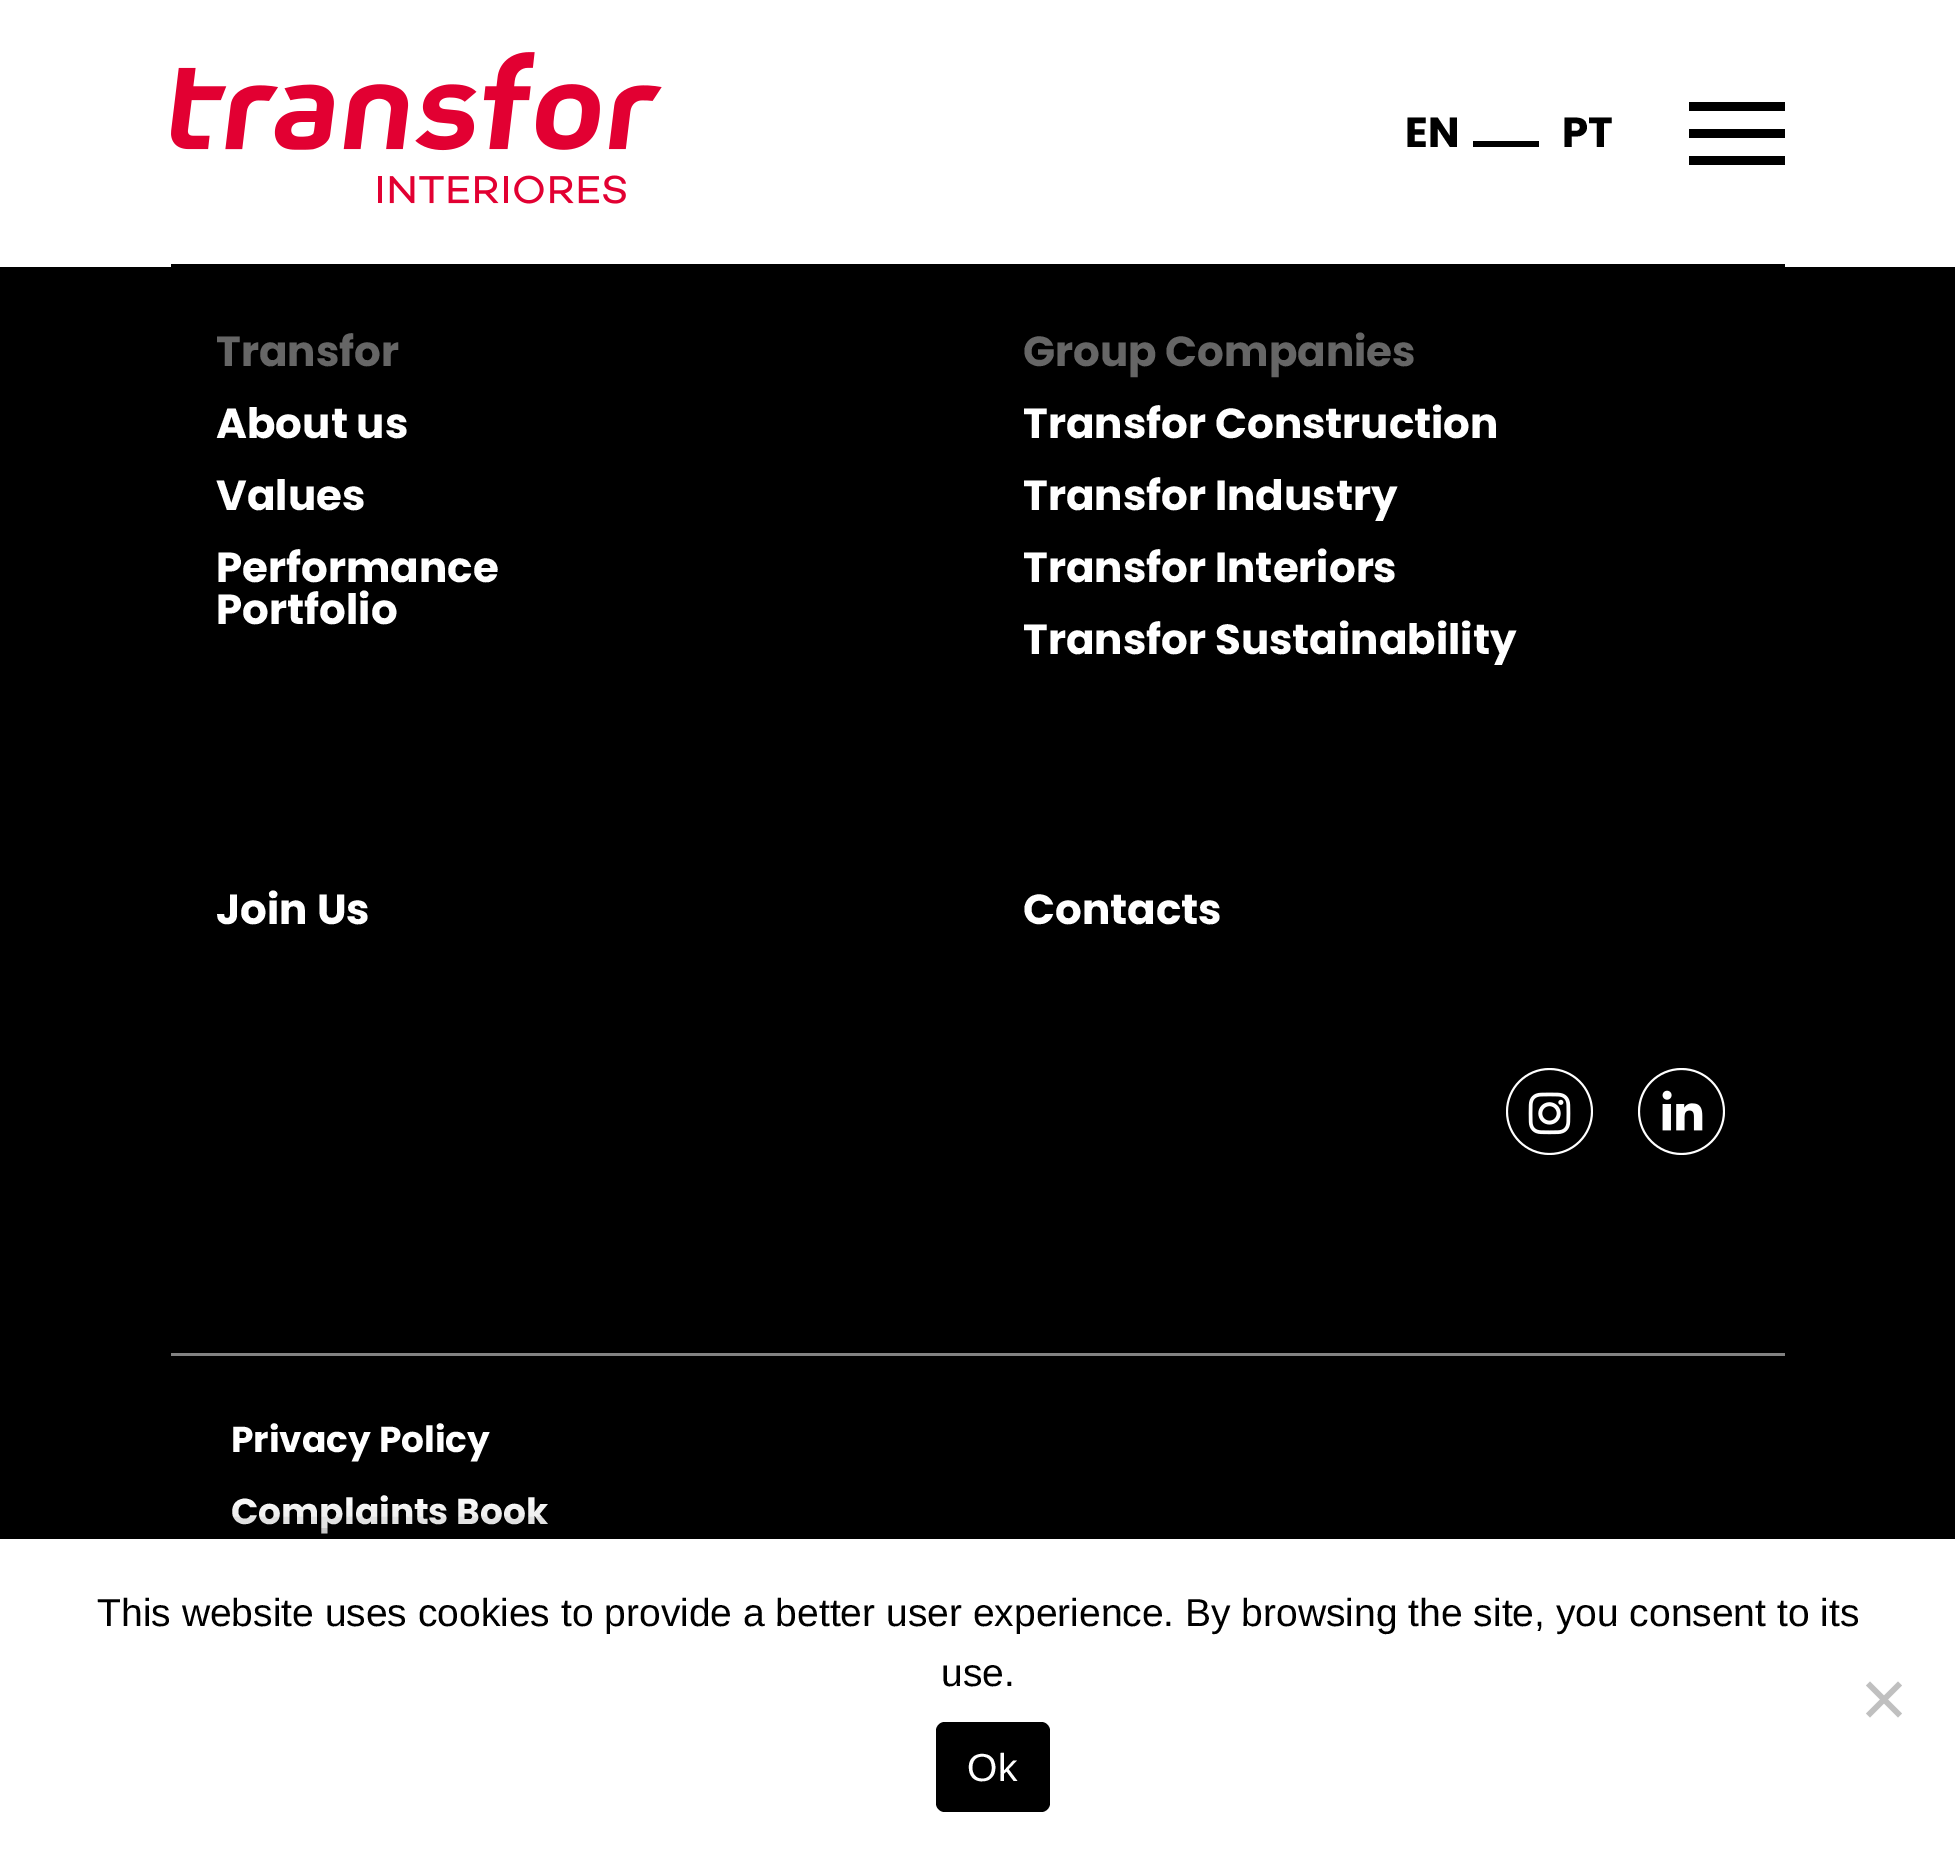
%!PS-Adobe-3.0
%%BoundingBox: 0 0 1955 1857
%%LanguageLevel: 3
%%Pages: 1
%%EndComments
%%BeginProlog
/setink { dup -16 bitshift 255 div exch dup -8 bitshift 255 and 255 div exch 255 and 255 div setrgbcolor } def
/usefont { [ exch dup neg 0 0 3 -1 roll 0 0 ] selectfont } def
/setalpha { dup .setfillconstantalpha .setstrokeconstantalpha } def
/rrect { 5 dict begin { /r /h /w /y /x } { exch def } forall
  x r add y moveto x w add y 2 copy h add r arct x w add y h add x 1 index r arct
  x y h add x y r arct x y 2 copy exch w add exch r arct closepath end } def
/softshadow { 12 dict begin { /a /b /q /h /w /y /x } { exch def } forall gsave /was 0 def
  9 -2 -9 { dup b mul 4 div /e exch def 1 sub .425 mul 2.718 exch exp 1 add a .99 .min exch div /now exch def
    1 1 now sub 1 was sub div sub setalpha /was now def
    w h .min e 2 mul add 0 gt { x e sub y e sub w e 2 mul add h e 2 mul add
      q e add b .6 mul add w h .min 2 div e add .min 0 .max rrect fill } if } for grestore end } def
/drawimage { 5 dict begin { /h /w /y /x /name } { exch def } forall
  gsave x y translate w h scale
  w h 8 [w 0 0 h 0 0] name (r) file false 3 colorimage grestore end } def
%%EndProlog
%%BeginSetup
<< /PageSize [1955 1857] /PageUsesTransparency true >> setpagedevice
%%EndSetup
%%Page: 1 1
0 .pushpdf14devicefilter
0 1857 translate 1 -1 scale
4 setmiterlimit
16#000000 setink
0 0 1955 1857 rectfill
16#FFFFFF setink
0 0 1955 267 rectfill
16#000000 setink
171 264 1614 3 rectfill
(img1.raw) 171 52 491 152 drawimage
/Poppins-Bold 42 usefont
1405 147 moveto (EN) show
1473 141 66 6 rectfill
1562 147 moveto (PT) show
[
    [1689 102 96 9 16#000000]
    [1689 129 96 9 16#000000]
    [1689 156 96 9 16#000000]
    [171 1353 1614 3 16#828282]
] { aload pop setink rectfill } forall
16#666666 setink
216 366 moveto (Transfor) show
16#FFFFFF setink
[
    [(About us) 216 438]
    [(Values) 216 510]
    [(Performance) 216 582]
] { aload pop moveto show } forall
16#666666 setink
1023 366 moveto (Group Companies) show
16#FFFFFF setink
[
    [(Transfor Construction) 1023 438]
    [(Transfor Industry) 1023 510]
    [(Transfor Interiors) 1023 582]
    [(Transfor Sustainability) 1023 654]
    [(Portfolio) 216 624]
    [(Join Us) 216 924]
    [(Contacts) 1023 924]
] { aload pop moveto show } forall
(img2.raw) 1506 1068 87 87 drawimage
(img3.raw) 1638 1068 87 87 drawimage
/Poppins-Bold 36 usefont
231 1452 moveto (Privacy Policy) show
231 1524 moveto (Complaints Book) show
16#000000 setink
18 1545 1920 282 0 22.5 0.75 softshadow
16#FFFFFF setink
0 1539 1955 318 rectfill
/LiberationSans-Regular 39 usefont
16#000000 setink
97 1626 moveto (This website uses cookies to provide a better user experience. By browsing the site, you consent to its) show
941 1686 moveto (use.) show
16#C0C0C0 setink
1898 1681.5 moveto 1902 1685.5 lineto 1870 1717.5 lineto 1866 1713.5 lineto closepath fill
1866 1685.5 moveto 1870 1681.5 lineto 1902 1713.5 lineto 1898 1717.5 lineto closepath fill
16#000000 setink
936 1722 114 90 9 rrect fill
16#FFFFFF setink
967 1781 moveto 1 0 (Ok) ashow
.poppdf14devicefilter showpage
%%EOF
